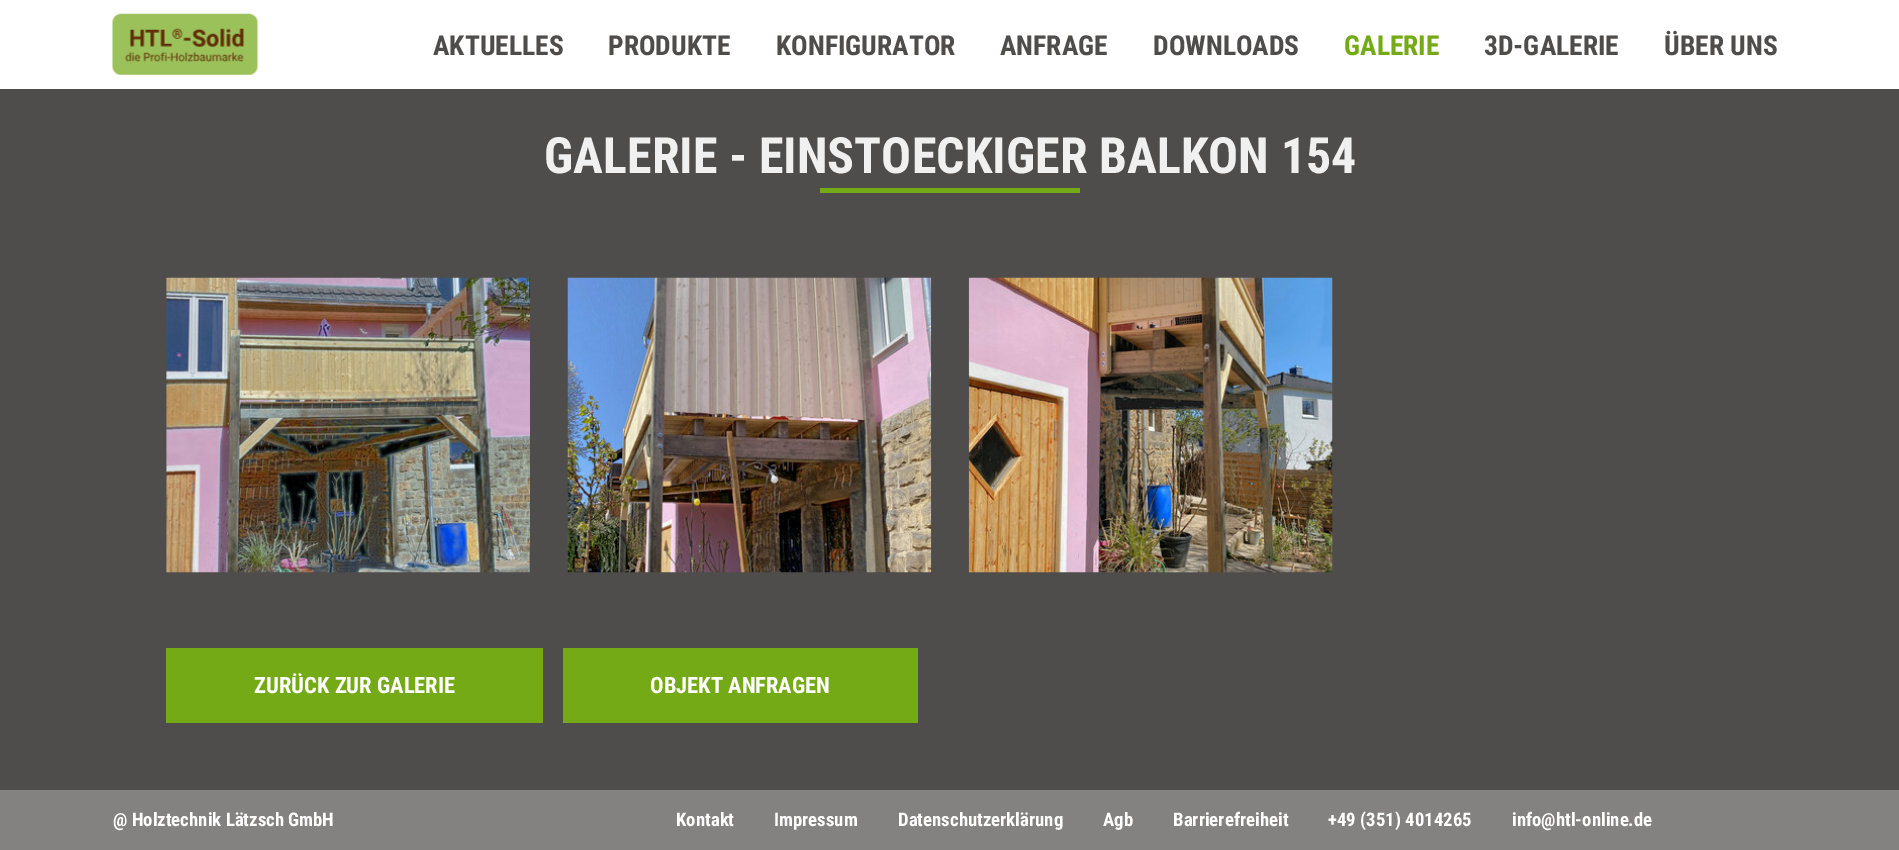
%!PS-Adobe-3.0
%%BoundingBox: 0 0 1899 850
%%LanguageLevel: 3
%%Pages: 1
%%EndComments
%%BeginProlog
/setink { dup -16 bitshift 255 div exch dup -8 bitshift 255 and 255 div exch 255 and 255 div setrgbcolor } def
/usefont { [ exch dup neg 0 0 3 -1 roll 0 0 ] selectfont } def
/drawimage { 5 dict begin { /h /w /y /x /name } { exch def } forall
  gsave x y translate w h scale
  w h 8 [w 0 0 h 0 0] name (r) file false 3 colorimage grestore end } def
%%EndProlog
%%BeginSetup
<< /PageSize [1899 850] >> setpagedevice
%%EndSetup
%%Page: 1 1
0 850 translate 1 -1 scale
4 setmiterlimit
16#4E4D4B setink
0 0 1899 850 rectfill
16#FFFFFF setink
0 0 1899 89 rectfill
(img1.raw) 112 13 146 62 drawimage
/RobotoCondensed-Bold 27.5 usefont
16#4E4D4B setink
[
    [(AKTUELLES) 433 55]
    [(PRODUKTE) 608 55]
    [(KONFIGURATOR) 776 55]
    [(ANFRAGE) 1000 55]
    [(DOWNLOADS) 1153 55]
] { aload pop moveto show } forall
16#74AA16 setink
1344 55 moveto (GALERIE) show
16#4E4D4B setink
1484 55 moveto (3D-GALERIE) show
1664 55 moveto (ÜBER UNS) show
/RobotoCondensed-Bold 50 usefont
16#F0F0F0 setink
544 173 moveto (GALERIE - EINSTOECKIGER BALKON 154) show
16#74AA16 setink
820 188 260 5 rectfill
(img2.raw) 166 277 364 296 drawimage
(img3.raw) 567 277 365 296 drawimage
(img4.raw) 968 277 365 296 drawimage
166 648 377 75 rectfill
/RobotoCondensed-Bold 22.5 usefont
16#FFFFFF setink
254 693 moveto (ZURÜCK ZUR GALERIE) show
16#74AA16 setink
563 648 355 75 rectfill
16#FFFFFF setink
650 693 moveto (OBJEKT ANFRAGEN) show
16#838281 setink
0 790 1899 60 rectfill
/RobotoCondensed-Bold 18.75 usefont
16#FFFFFF setink
[
    [(@ Holztechnik Lätzsch GmbH) 113 826]
    [(Kontakt) 676 826]
    [(Impressum) 774 826]
    [(Datenschutzerklärung) 898 826]
    [(Agb) 1103 826]
    [(Barrierefreiheit) 1173 826]
    [(+49 \(351\) 4014265) 1328 826]
    [(info@htl-online.de) 1512 826]
] { aload pop moveto show } forall
showpage
%%EOF
